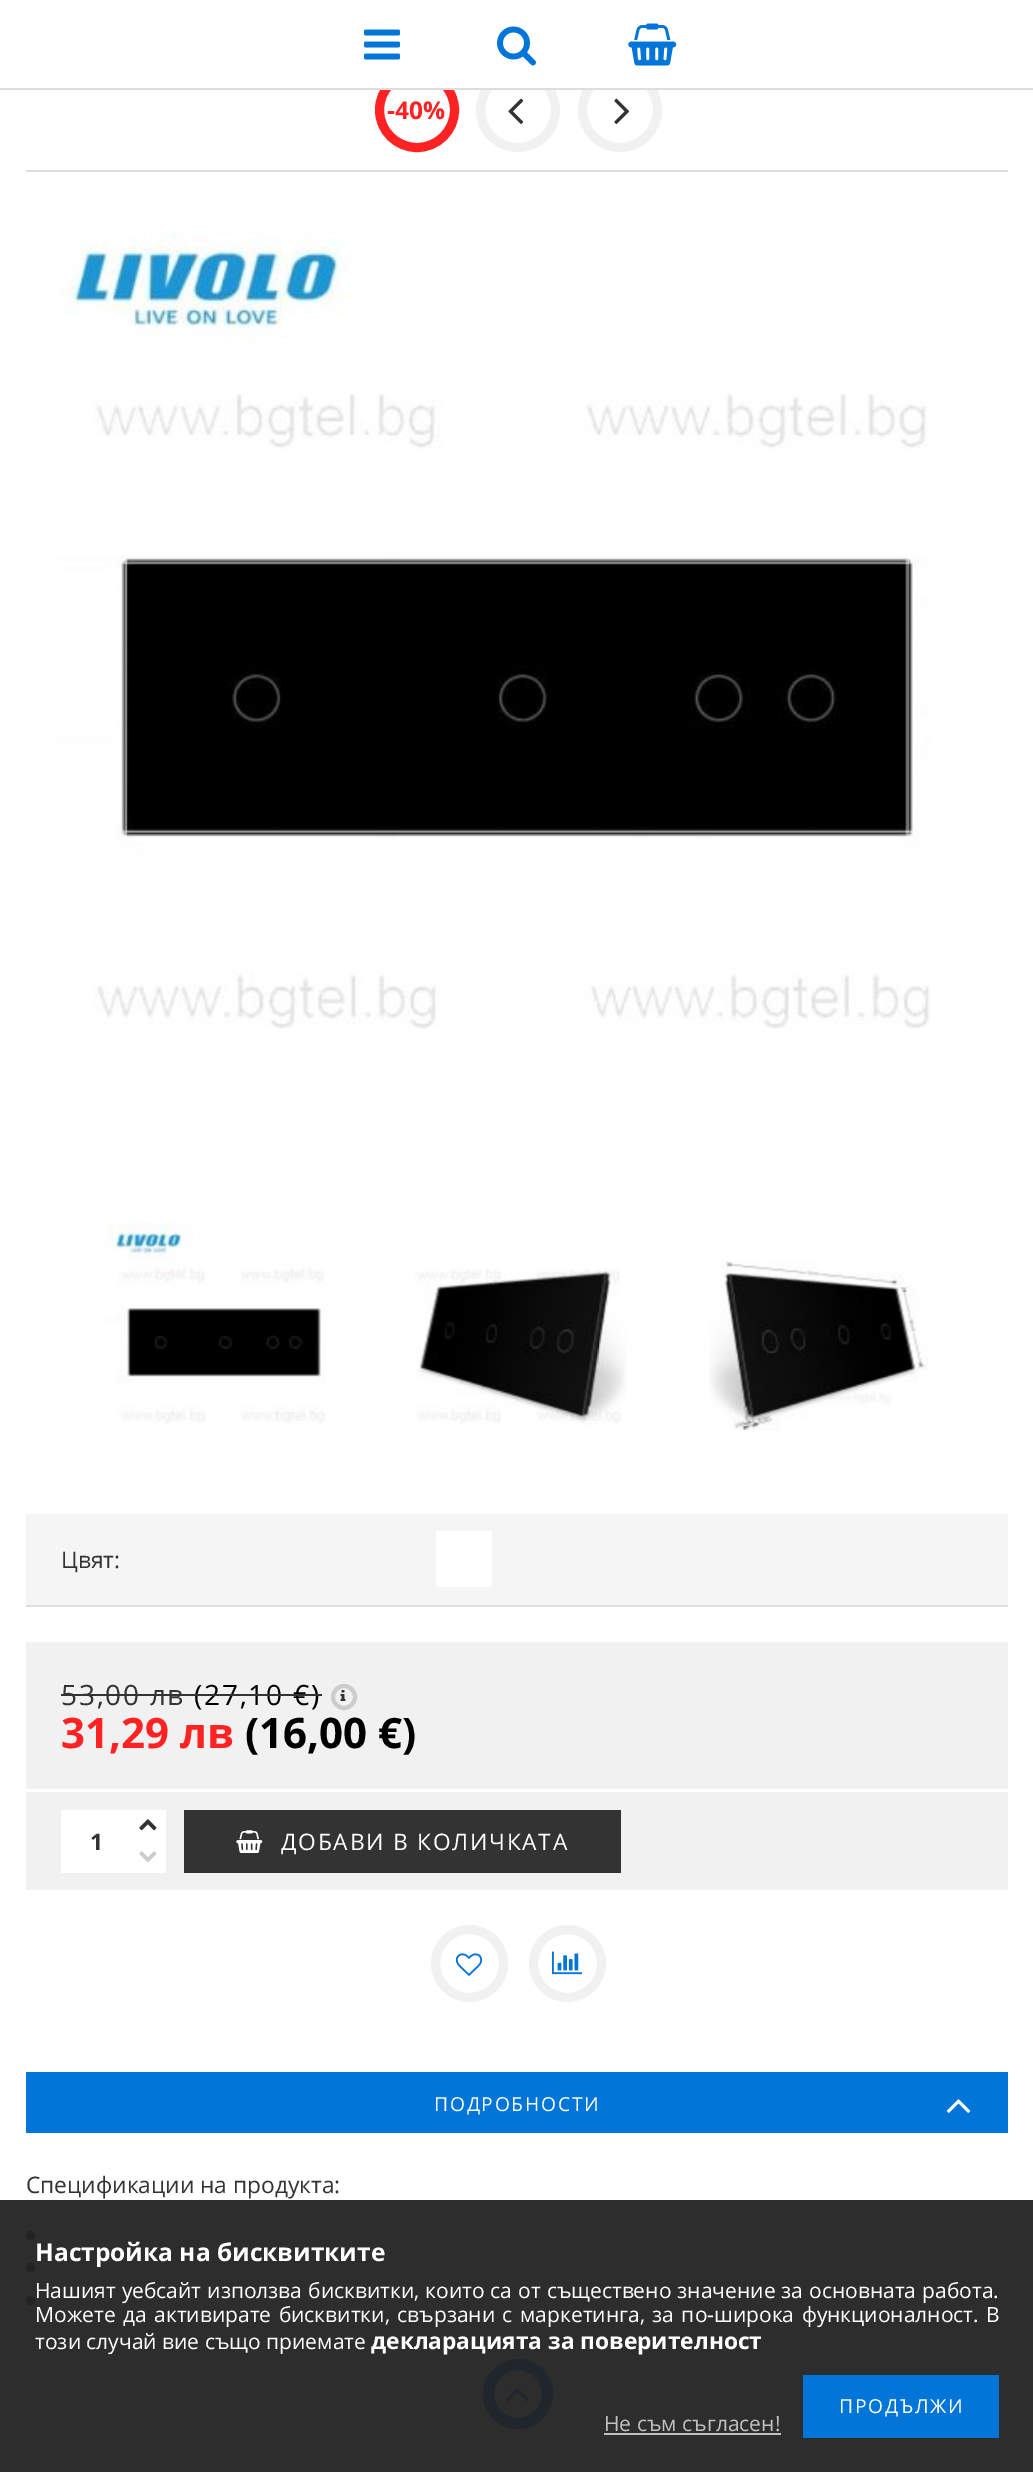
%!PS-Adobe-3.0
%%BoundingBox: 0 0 1033 2472
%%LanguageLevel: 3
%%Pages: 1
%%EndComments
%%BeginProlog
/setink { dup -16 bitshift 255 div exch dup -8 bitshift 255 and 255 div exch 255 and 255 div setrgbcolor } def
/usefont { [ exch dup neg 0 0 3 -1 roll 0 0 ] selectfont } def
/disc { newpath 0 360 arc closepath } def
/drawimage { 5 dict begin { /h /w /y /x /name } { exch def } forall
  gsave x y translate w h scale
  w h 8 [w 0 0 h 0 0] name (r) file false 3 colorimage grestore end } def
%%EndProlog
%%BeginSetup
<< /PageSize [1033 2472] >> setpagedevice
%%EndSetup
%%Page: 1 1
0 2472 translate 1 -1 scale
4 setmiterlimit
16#FFFFFF setink
0 0 1033 2472 rectfill
16#2D2D2D setink
0 2200 1033 272 rectfill
16#FF2222 setink
9 setlinewidth
417 110 37.5 disc stroke
16#F1F1F1 setink
518 110 37.5 disc stroke
620 110 37.5 disc stroke
16#FFFFFF setink
381 68 275 20 rectfill
16#DDDDDD setink
0 88 1033 2 rectfill
(img1.raw) 364 29 36 31 drawimage
(img2.raw) 497 26 39 40 drawimage
(img3.raw) 628 23 49 43 drawimage
26 170 982 2 rectfill
/OpenSans-Bold 24.5 usefont
16#FF2222 setink
387 119 moveto (-40%) show
(img4.raw) 508 98 16 26 drawimage
(img5.raw) 614 98 16 26 drawimage
(img6.raw) 57 233 873 796 drawimage
(img7.raw) 105 1223 220 201 drawimage
(img8.raw) 415 1268 212 157 drawimage
(img9.raw) 709 1260 219 171 drawimage
16#DDDDDD setink
26 1605 982 2 rectfill
16#F5F5F5 setink
26 1514 982 91 rectfill
/OpenSans-Regular 22.75 usefont
16#333333 setink
61 1568 moveto (Цвят:) show
16#FFFFFF setink
436 1531 56 56 rectfill
16#F1F1F1 setink
26 1642 982 147 rectfill
/OpenSans-Regular 28 usefont
16#333333 setink
61 1705 moveto 1.75 0 (53,00 лв) ashow
61 1694 133 2 rectfill
16#000000 setink
194 1705 moveto 1.75 0 (\(27,10 €\)) ashow
16#333333 setink
194 1694 128 2 rectfill
16#CCCCCC setink
4 setlinewidth
344 1697 11 disc stroke
(img10.raw) 340 1690 6 11 drawimage
/OpenSans-Bold 42 usefont
16#FF2222 setink
61 1748 moveto (31,29 лв) show
16#000000 setink
245 1748 moveto (\(16,00 €\)) show
16#F1F1F1 setink
26 1792 982 98 rectfill
16#FFFFFF setink
61 1810 70 63 rectfill
/OpenSans-Bold 22.75 usefont
16#333333 setink
90 1850 moveto (1) show
16#FFFFFF setink
131 1810 35 63 rectfill
(img11.raw) 139 1819 18 12 drawimage
(img12.raw) 139 1851 18 12 drawimage
16#333333 setink
184 1810 437 63 rectfill
(img13.raw) 236 1830 27 23 drawimage
/OpenSans-Regular 22.75 usefont
16#FFFFFF setink
281 1850 moveto 1.75 0 (ДОБАВИ В КОЛИЧКАТА) ashow
16#F1F1F1 setink
9 setlinewidth
469.5 1963.5 34 disc stroke
(img14.raw) 455 1953 28 23 drawimage
567.5 1963.5 34 disc stroke
(img15.raw) 552 1951 30 24 drawimage
16#0275D8 setink
26 2072 982 61 rectfill
/OpenSans-Regular 19.25 usefont
16#FFFFFF setink
434 2111 moveto 1.75 0 (ПОДРОБНОСТИ) ashow
(img16.raw) 946 2099 25 14 drawimage
/OpenSans-Regular 22.75 usefont
16#333333 setink
26 2193 moveto (Спецификации на продукта:) show
16#232323 setink
30.5 2235.5 4.5 disc fill
30.5 2267.5 4.5 disc fill
30.5 2300.5 4.5 disc fill
/OpenSans-Bold 24.5 usefont
16#FFFFFF setink
35 2261 moveto (Настройка на бисквитките) show
/OpenSans-Regular 21 usefont
35 2298 moveto 0.5 0 32 (Нашият уебсайт използва бисквитки, които са от съществено значение за основната работа.) widthshow
35 2322 moveto 2 0 32 (Можете да активирате бисквитки, свързани с маркетинга, за по-широка функционалност. В) widthshow
35 2349 moveto (този случай вие също приемате) show
/OpenSans-Bold 22.75 usefont
371 2349 moveto (декларацията за поверителност) show
16#0275D8 setink
803 2375 196 63 rectfill
/OpenSans-Regular 19.25 usefont
16#FFFFFF setink
839 2413 moveto 1.75 0 (ПРОДЪЛЖИ) ashow
/OpenSans-Regular 21 usefont
16#C0C0C0 setink
604 2431 moveto (Не съм съгласен!) show
604 2433 177 2 rectfill
16#20262B setink
11 setlinewidth
518 2394 29.5 disc stroke
(img17.raw) 505 2388 25 14 drawimage
showpage
%%EOF
